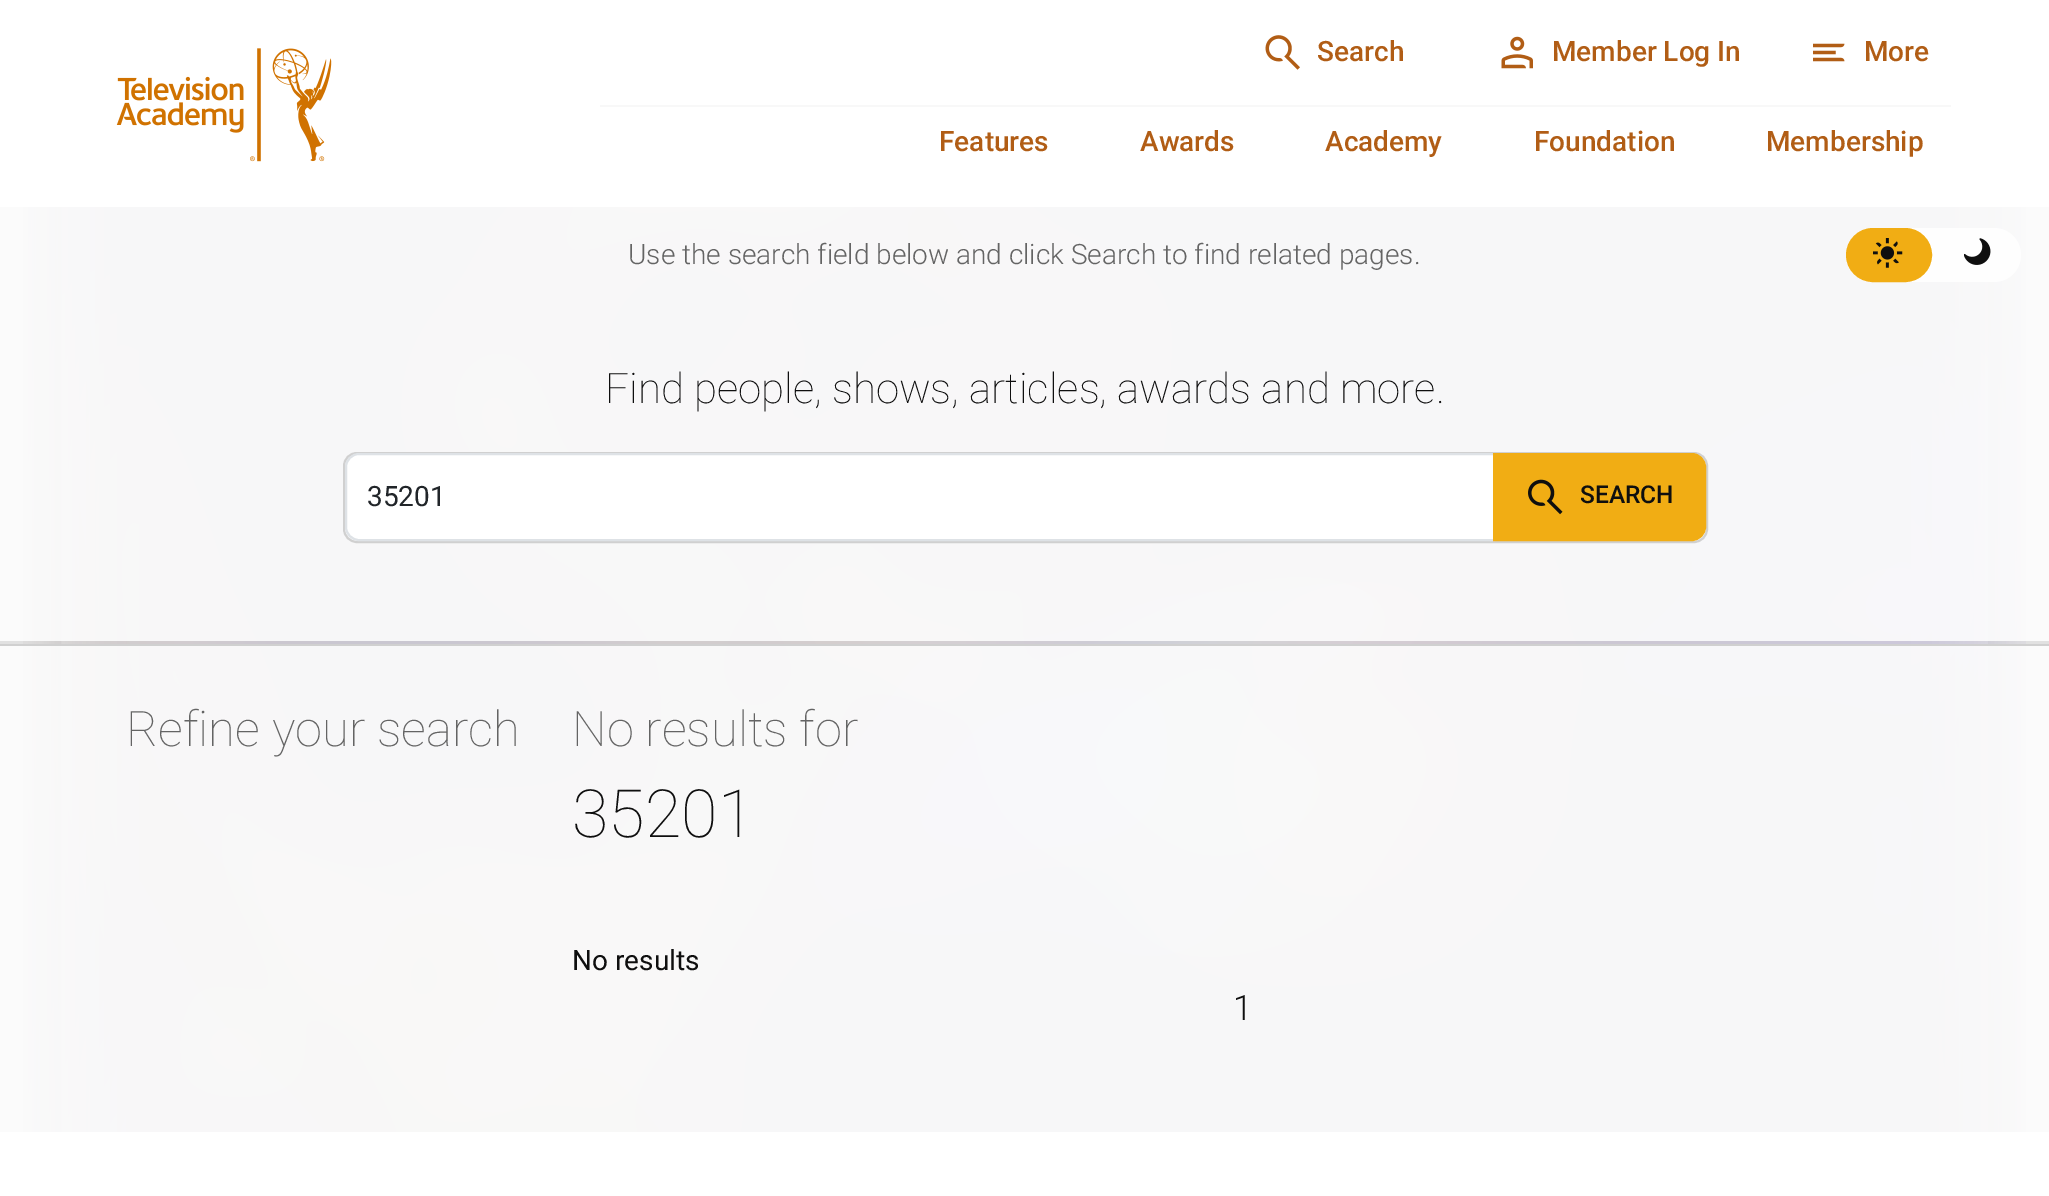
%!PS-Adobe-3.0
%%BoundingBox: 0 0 2049 1196
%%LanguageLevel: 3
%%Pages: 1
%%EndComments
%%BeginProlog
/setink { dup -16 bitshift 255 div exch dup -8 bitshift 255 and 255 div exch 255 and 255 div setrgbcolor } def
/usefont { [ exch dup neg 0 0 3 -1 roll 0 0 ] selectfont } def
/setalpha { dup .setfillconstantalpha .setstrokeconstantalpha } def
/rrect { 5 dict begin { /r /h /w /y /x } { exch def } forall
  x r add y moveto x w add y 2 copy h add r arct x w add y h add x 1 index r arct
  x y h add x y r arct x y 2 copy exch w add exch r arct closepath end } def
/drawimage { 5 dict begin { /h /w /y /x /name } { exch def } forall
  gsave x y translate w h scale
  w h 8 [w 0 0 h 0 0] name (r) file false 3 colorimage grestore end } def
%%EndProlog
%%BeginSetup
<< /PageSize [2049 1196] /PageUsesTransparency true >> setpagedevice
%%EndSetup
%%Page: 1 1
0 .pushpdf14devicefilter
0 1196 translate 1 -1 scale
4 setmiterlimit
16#E1E1E1 setink
0 0 2049 1196 rectfill
16#FFFFFF setink
0 0 2049 207 rectfill
(img1.raw) 116 48 216 114 drawimage
(img2.raw) 1265 35 35 35 drawimage
/Roboto-Medium 28 usefont
16#B15D15 setink
1317 61 moveto (Search) show
(img3.raw) 1501 36 32 33 drawimage
1552 61 moveto (Member Log In) show
(img4.raw) 1813 43 32 19 drawimage
1864 61 moveto (More) show
16#F8F8F8 setink
600 105 1351 2 rectfill
16#B15D15 setink
[
    [(Features) 939 151]
    [(Awards) 1140 151]
    [(Academy) 1325 151]
    [(Foundation) 1534 151]
    [(Membership) 1766 151]
] { aload pop moveto show } forall
(img5.raw) 23 207 2003 925 drawimage
0.85 setalpha
16#FFFFFF setink
0 207 2049 434 rectfill
/Roboto-Light 28 usefont
1 setalpha
16#646464 setink
628 264 moveto (Use the search field below and click Search to find related pages.) show
/Roboto-Thin 42 usefont
16#0F0F0F setink
605 403 moveto (Find people, shows, articles, awards and more.) show
16#D0D0D0 setink
2 setlinewidth
344 453 1363 89 13 rrect stroke
16#FFFFFF setink
359 454 moveto 1494 454 lineto 1494 540 lineto 359 540 lineto 352 540 346 534 346 527 curveto 346 467 lineto 346 460 352 454 359 454 curveto closepath gsave fill grestore
16#DEE2E6 setink
stroke
/Roboto-Regular 28 usefont
16#212529 setink
367 506 moveto (35201) show
16#F1AD14 setink
1494 454 moveto 1692 454 lineto 1699 454 1705 460 1705 467 curveto 1705 527 lineto 1705 534 1699 540 1692 540 curveto 1494 540 lineto closepath gsave fill grestore
stroke
(img6.raw) 1528 479 35 36 drawimage
/Roboto-Medium 24.5 usefont
16#0F0F0F setink
1580 503 moveto (SEARCH) show
0.85 setalpha
16#FFFFFF setink
0 646 2049 486 rectfill
1 setalpha
16#D0D0D0 setink
0 644 2049 2 rectfill
/Roboto-Thin 49 usefont
16#646464 setink
126 746 moveto (Refine your search) show
572 746 moveto (No results for) show
/Roboto-Thin 66.5 usefont
16#0F0F0F setink
572 837 moveto (35201) show
/Roboto-Regular 28 usefont
572 970 moveto (No results) show
/Roboto-Light 35 usefont
1233 1020 moveto (1) show
0.85 setalpha
16#FFFFFF setink
1846 228 175 54 27 rrect fill
1 setalpha
16#F1AD14 setink
1847 229 84 52 26 rrect gsave fill grestore
stroke
(img7.raw) 1873 238 30 30 drawimage
(img8.raw) 1964 238 27 27 drawimage
16#FFFFFF setink
0 1132 2049 64 rectfill
.poppdf14devicefilter showpage
%%EOF
